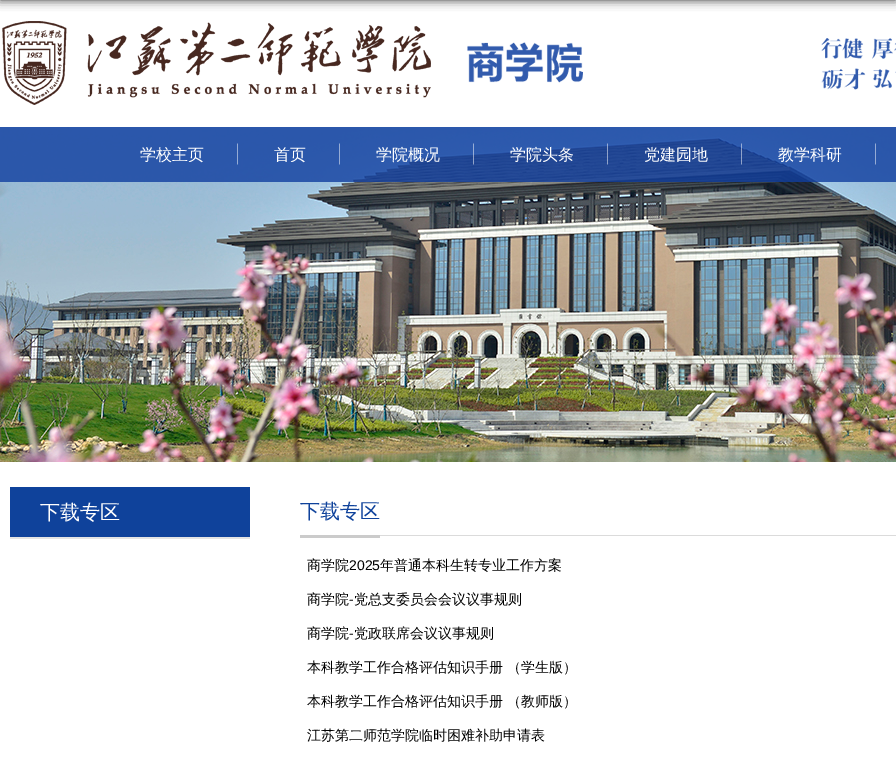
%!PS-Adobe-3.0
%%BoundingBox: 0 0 896 769
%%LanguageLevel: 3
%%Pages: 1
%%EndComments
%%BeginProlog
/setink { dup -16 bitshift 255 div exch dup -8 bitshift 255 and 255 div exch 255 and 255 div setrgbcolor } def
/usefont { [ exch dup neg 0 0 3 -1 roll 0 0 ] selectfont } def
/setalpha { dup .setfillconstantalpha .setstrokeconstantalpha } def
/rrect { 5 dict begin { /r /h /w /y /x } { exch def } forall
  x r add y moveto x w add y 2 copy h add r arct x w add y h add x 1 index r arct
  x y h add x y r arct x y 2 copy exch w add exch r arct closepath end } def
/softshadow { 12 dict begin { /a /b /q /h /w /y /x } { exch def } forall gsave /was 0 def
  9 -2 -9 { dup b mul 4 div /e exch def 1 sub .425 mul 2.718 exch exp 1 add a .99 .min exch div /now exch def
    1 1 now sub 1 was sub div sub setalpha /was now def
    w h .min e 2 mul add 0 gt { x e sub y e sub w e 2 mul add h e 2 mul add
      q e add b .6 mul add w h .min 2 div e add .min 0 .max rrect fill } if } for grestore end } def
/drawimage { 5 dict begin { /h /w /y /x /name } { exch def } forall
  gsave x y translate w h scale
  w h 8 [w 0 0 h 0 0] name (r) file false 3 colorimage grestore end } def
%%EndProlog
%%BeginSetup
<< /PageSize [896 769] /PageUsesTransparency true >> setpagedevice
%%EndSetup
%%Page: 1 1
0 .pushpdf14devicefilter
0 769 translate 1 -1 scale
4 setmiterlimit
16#FFFFFF setink
0 0 896 769 rectfill
16#000000 setink
0 -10 896 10 0 5 0.8 softshadow
(img1.raw) 2 21 894 84 drawimage
(img2.raw) 0 127 896 335 drawimage
0.8 setalpha
16#103E9F setink
0 127 896 55 rectfill
1 setalpha
(img3.raw) 237 143 1 22 drawimage
/WenQuanYiZenHei-Medium 16 usefont
16#FFFFFF setink
140 160 moveto (学校主页) show
(img4.raw) 339 143 1 22 drawimage
274 160 moveto (首页) show
(img5.raw) 473 143 1 22 drawimage
376 160 moveto (学院概况) show
(img6.raw) 607 143 1 22 drawimage
510 160 moveto (学院头条) show
(img7.raw) 741 143 1 22 drawimage
644 160 moveto (党建园地) show
(img8.raw) 875 143 1 22 drawimage
778 160 moveto (教学科研) show
16#0F429B setink
10 487 240 50 rectfill
/WenQuanYiZenHei-Medium 20 usefont
16#FFFFFF setink
40 519 moveto (下载专区) show
[
    [10 537 240 2 16#E4E4E4]
    [380 535 516 1 16#DBDBDB]
    [300 535 80 3 16#CBCBCB]
] { aload pop setink rectfill } forall
16#0F429B setink
300 518 moveto (下载专区) show
/WenQuanYiZenHei-Medium 14 usefont
16#000000 setink
307 570 moveto (商学院) show
/LiberationSans-Regular 14 usefont
349 570 moveto (2025) show
/WenQuanYiZenHei-Medium 14 usefont
380 570 moveto (年普通本科生转专业工作方案) show
307 604 moveto (商学院) show
/LiberationSans-Regular 14 usefont
349 604 moveto (-) show
/WenQuanYiZenHei-Medium 14 usefont
354 604 moveto (党总支委员会会议议事规则) show
307 638 moveto (商学院) show
/LiberationSans-Regular 14 usefont
349 638 moveto (-) show
/WenQuanYiZenHei-Medium 14 usefont
[
    [(党政联席会议议事规则) 354 638]
    [(本科教学工作合格评估知识手册 （学生版）) 307 672]
    [(本科教学工作合格评估知识手册 （教师版）) 307 706]
    [(江苏第二师范学院临时困难补助申请表) 307 740]
] { aload pop moveto show } forall
.poppdf14devicefilter showpage
%%EOF
